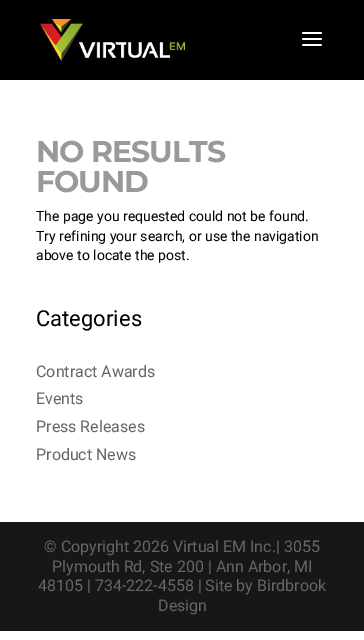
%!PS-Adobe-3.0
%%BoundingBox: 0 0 364 640
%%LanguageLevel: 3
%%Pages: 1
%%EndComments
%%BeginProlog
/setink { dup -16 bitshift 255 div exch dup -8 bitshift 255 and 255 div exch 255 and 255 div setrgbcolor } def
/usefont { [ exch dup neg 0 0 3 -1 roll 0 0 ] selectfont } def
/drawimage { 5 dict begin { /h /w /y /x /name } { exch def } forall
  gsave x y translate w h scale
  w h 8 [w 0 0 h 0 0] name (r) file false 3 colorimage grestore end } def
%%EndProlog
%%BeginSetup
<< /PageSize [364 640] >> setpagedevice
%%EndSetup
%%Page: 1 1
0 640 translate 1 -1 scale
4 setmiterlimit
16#FFFFFF setink
0 0 364 640 rectfill
16#000000 setink
0 0 364 80 rectfill
(img1.raw) 40 19 145 42 drawimage
(img2.raw) 302 32 20 14 drawimage
/Montserrat-Bold 30 usefont
16#999999 setink
36 162 moveto -1 0 (NO RESULTS) ashow
36 192 moveto -1 0 (FOUND) ashow
/Roboto-Regular 14 usefont
16#000000 setink
[
    [(The page you requested could not be found.) 36 221]
    [(Try refining your search, or use the navigation) 36 241]
    [(above to locate the post.) 36 260]
] { aload pop moveto show } forall
/Roboto-Regular 22 usefont
36 326 moveto (Categories) show
/Roboto-Regular 16 usefont
16#666666 setink
[
    [(Contract Awards) 36 377]
    [(Events) 36 404]
    [(Press Releases) 36 432]
    [(Product News) 36 460]
] { aload pop moveto show } forall
16#171717 setink
0 522 364 109 rectfill
16#666666 setink
[
    [(© Copyright 2026 Virtual EM Inc.| 3055) 44 552]
    [(Plymouth Rd, Ste 200 | Ann Arbor, MI) 52 572]
    [(48105 | 734-222-4558 | Site by Birdbrook) 38 591]
    [(Design) 158 611]
] { aload pop moveto show } forall
showpage
%%EOF
